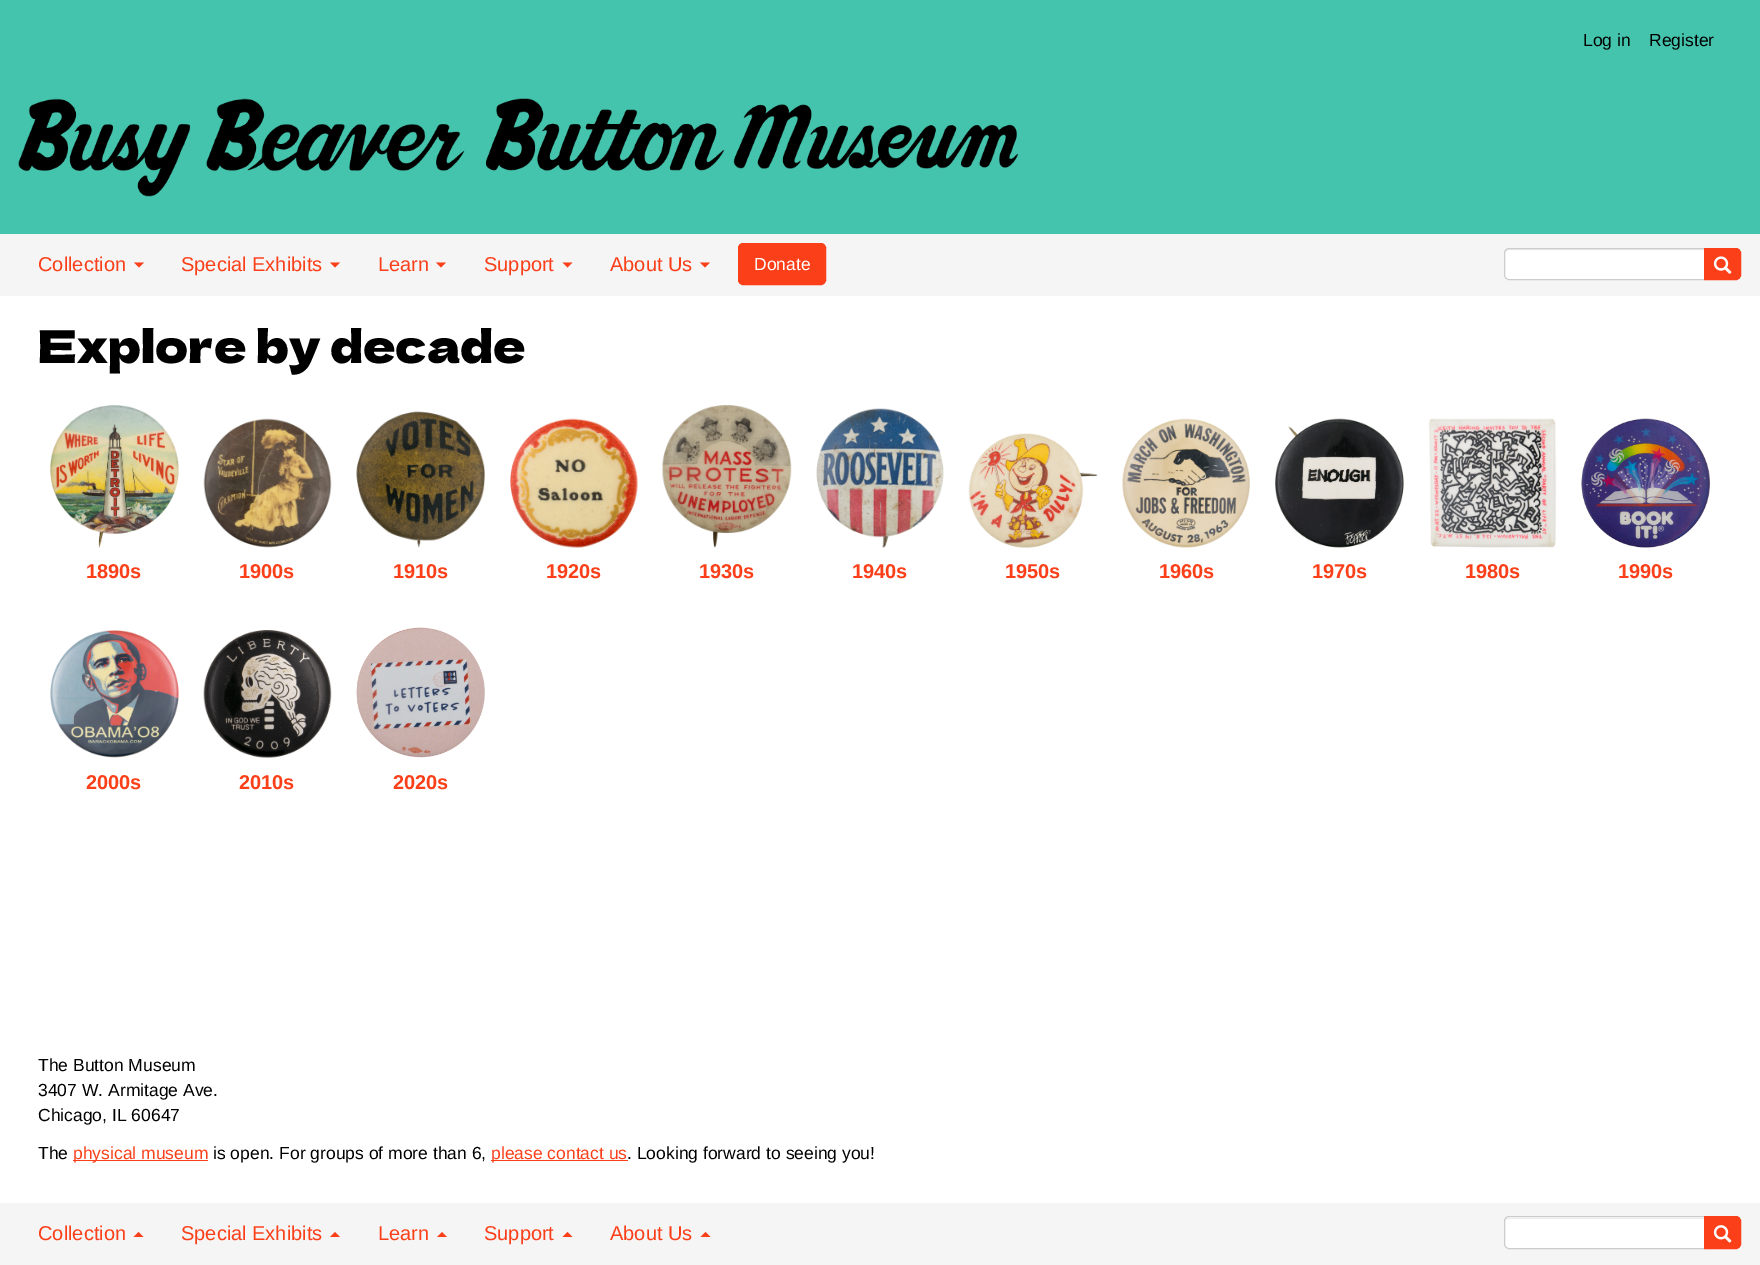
%!PS-Adobe-3.0
%%BoundingBox: 0 0 1760 1265
%%LanguageLevel: 3
%%Pages: 1
%%EndComments
%%BeginProlog
/setink { dup -16 bitshift 255 div exch dup -8 bitshift 255 and 255 div exch 255 and 255 div setrgbcolor } def
/usefont { [ exch dup neg 0 0 3 -1 roll 0 0 ] selectfont } def
/rrect { 5 dict begin { /r /h /w /y /x } { exch def } forall
  x r add y moveto x w add y 2 copy h add r arct x w add y h add x 1 index r arct
  x y h add x y r arct x y 2 copy exch w add exch r arct closepath end } def
/drawimage { 5 dict begin { /h /w /y /x /name } { exch def } forall
  gsave x y translate w h scale
  w h 8 [w 0 0 h 0 0] name (r) file false 3 colorimage grestore end } def
%%EndProlog
%%BeginSetup
<< /PageSize [1760 1265] >> setpagedevice
%%EndSetup
%%Page: 1 1
0 1265 translate 1 -1 scale
4 setmiterlimit
16#FFFFFF setink
0 0 1760 1265 rectfill
16#45C4AD setink
0 0 1760 234 rectfill
/LiberationSans-Regular 17.5 usefont
16#000000 setink
1583 46 moveto (Log in) show
1649 46 moveto (Register) show
(img1.raw) 18 98 1000 99 drawimage
16#F5F5F5 setink
0 234 1760 62 rectfill
/LiberationSans-Regular 20 usefont
16#FA3F19 setink
38 271 moveto (Collection) show
134 262.5 moveto 144 262.5 lineto 139 267.5 lineto closepath fill
181 271 moveto (Special Exhibits) show
330 262.5 moveto 340 262.5 lineto 335 267.5 lineto closepath fill
378 271 moveto (Learn) show
436 262.5 moveto 446 262.5 lineto 441 267.5 lineto closepath fill
484 271 moveto (Support) show
562.5 262.5 moveto 572.5 262.5 lineto 567.5 267.5 lineto closepath fill
610 271 moveto (About Us) show
700 262.5 moveto 710 262.5 lineto 705 267.5 lineto closepath fill
738.5 243.5 87 41 4.5 rrect gsave fill grestore
stroke
/LiberationSans-Regular 17.5 usefont
16#FFFFFF setink
754 270 moveto (Donate) show
1509 248 moveto 1705 248 lineto 1705 280 lineto 1509 280 lineto 1506 280 1504 278 1504 275 curveto 1504 253 lineto 1504 250 1506 248 1509 248 curveto closepath fill
16#ECECEC setink
1509 250 moveto 1704 250 lineto 1704 249 lineto 1509 249 lineto 1506 249 1505 251 1505 254 curveto 1505 252 1507 250 1509 250 curveto closepath fill
16#CCCCCC setink
1509 248.5 moveto 1704.5 248.5 lineto 1704.5 279.5 lineto 1509 279.5 lineto 1506.5 279.5 1504.5 277.5 1504.5 275 curveto 1504.5 253 lineto 1504.5 250.5 1506.5 248.5 1509 248.5 curveto closepath stroke
16#FA3F19 setink
1704.5 248.5 moveto 1736 248.5 lineto 1738.5 248.5 1740.5 250.5 1740.5 253 curveto 1740.5 275 lineto 1740.5 277.5 1738.5 279.5 1736 279.5 curveto 1704.5 279.5 lineto closepath gsave fill grestore
stroke
(img2.raw) 1713 256 19 18 drawimage
/DelaGothicOne-Regular 45 usefont
16#000000 setink
38 363 moveto (Explore by decade) show
(img3.raw) 50 405 129 143 drawimage
/LiberationSans-Bold 20 usefont
16#FA3F19 setink
86 578 moveto (1890s) show
(img4.raw) 203 418 129 130 drawimage
239 578 moveto (1900s) show
(img5.raw) 356 411 129 137 drawimage
393 578 moveto (1910s) show
(img6.raw) 510 418 128 130 drawimage
546 578 moveto (1920s) show
(img7.raw) 662 405 130 143 drawimage
699 578 moveto (1930s) show
(img8.raw) 816 408 128 140 drawimage
852 578 moveto (1940s) show
(img9.raw) 968 433 130 115 drawimage
1005 578 moveto (1950s) show
(img10.raw) 1122 418 128 130 drawimage
1159 578 moveto (1960s) show
(img11.raw) 1275 418 129 130 drawimage
1312 578 moveto (1970s) show
(img12.raw) 1428 418 129 130 drawimage
1465 578 moveto (1980s) show
(img13.raw) 1581 418 129 130 drawimage
1618 578 moveto (1990s) show
(img14.raw) 50 630 129 128 drawimage
86 789 moveto (2000s) show
(img15.raw) 203 630 129 128 drawimage
239 789 moveto (2010s) show
(img16.raw) 356 627 129 131 drawimage
393 789 moveto (2020s) show
/LiberationSans-Regular 17.5 usefont
16#000000 setink
[
    [(The Button Museum) 38 1071]
    [(3407 W. Armitage Ave.) 38 1096]
    [(Chicago, IL 60647) 38 1121]
    [(The) 38 1159]
] { aload pop moveto show } forall
16#FA3F19 setink
73 1160 135 1 rectfill
73 1159 moveto (physical museum) show
16#000000 setink
213 1159 moveto (is open. For groups of more than 6,) show
16#FA3F19 setink
491 1160 137 1 rectfill
491 1159 moveto (please contact us) show
16#000000 setink
627 1159 moveto (. Looking forward to seeing you!) show
16#F5F5F5 setink
0 1203 1760 62 rectfill
/LiberationSans-Regular 20 usefont
16#FA3F19 setink
38 1240 moveto (Collection) show
143.5 1237 moveto 133.5 1237 lineto 138.5 1232 lineto closepath fill
181 1240 moveto (Special Exhibits) show
340 1237 moveto 330 1237 lineto 335 1232 lineto closepath fill
378 1240 moveto (Learn) show
447 1237 moveto 437 1237 lineto 442 1232 lineto closepath fill
484 1240 moveto (Support) show
572.5 1237 moveto 562.5 1237 lineto 567.5 1232 lineto closepath fill
610 1240 moveto (About Us) show
710.5 1237 moveto 700.5 1237 lineto 705.5 1232 lineto closepath fill
16#FFFFFF setink
1509 1216 moveto 1705 1216 lineto 1705 1249 lineto 1509 1249 lineto 1506 1249 1504 1247 1504 1244 curveto 1504 1221 lineto 1504 1218 1506 1216 1509 1216 curveto closepath fill
16#ECECEC setink
1509 1219 moveto 1704 1219 lineto 1704 1218 lineto 1509 1218 lineto 1507 1218 1505 1220 1505 1222 curveto 1505 1220 1507 1219 1509 1219 curveto closepath fill
16#CCCCCC setink
1509 1216.5 moveto 1704.5 1216.5 lineto 1704.5 1248.5 lineto 1509 1248.5 lineto 1506.5 1248.5 1504.5 1246.5 1504.5 1244 curveto 1504.5 1221 lineto 1504.5 1218.5 1506.5 1216.5 1509 1216.5 curveto closepath stroke
16#FA3F19 setink
1704.5 1216.5 moveto 1736 1216.5 lineto 1738.5 1216.5 1740.5 1218.5 1740.5 1221 curveto 1740.5 1244 lineto 1740.5 1246.5 1738.5 1248.5 1736 1248.5 curveto 1704.5 1248.5 lineto closepath gsave fill grestore
stroke
(img17.raw) 1713 1225 19 18 drawimage
showpage
%%EOF
